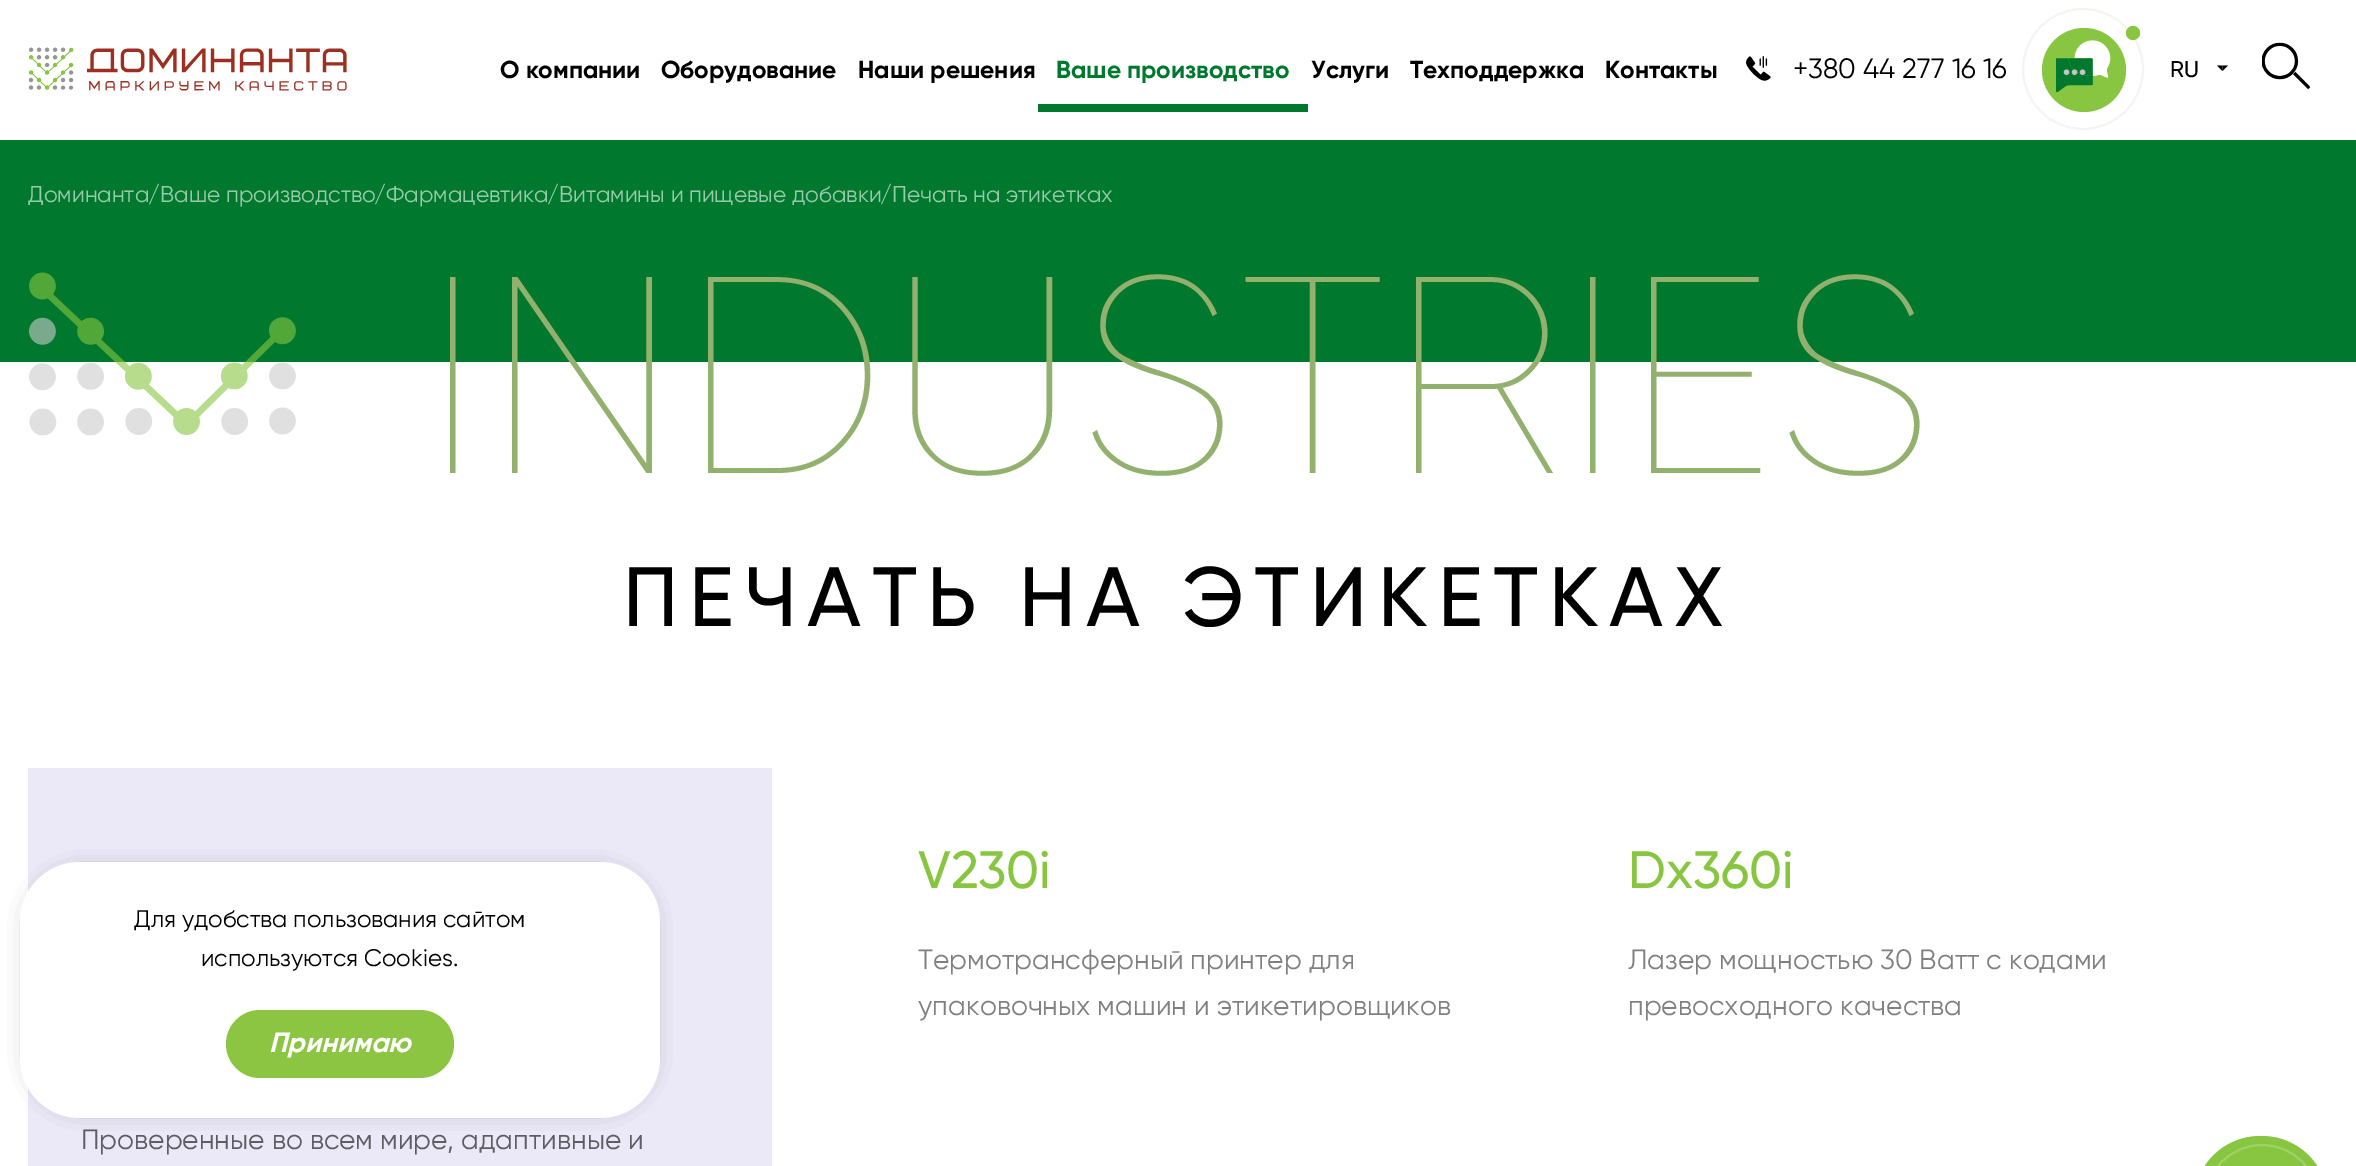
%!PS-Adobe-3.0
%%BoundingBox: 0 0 2356 1166
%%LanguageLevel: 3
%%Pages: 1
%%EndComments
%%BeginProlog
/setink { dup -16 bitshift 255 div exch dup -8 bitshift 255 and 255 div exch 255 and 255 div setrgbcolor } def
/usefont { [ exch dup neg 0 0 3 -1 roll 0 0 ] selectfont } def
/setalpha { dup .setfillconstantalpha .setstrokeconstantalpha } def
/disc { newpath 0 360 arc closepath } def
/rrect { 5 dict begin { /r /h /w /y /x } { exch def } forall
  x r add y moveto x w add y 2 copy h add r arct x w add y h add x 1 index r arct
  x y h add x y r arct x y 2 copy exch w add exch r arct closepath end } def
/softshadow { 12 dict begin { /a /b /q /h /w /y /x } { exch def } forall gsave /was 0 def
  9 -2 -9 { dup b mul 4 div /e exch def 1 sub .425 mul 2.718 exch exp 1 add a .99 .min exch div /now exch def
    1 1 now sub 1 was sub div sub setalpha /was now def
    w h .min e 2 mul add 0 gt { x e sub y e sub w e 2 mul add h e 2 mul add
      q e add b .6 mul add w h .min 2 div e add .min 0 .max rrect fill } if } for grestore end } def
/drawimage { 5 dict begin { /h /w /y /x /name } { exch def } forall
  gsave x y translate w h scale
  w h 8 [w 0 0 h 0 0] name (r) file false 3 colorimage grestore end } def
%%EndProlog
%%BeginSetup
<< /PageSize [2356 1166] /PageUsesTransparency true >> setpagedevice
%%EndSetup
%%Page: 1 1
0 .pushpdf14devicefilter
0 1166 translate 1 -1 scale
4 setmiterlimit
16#FFFFFF setink
0 0 2356 1166 rectfill
(img1.raw) 28 47 319 44 drawimage
/Gilroy-Bold 24.5 usefont
16#000000 setink
[
    [(О компании) 500 78]
    [(Оборудование) 661 78]
    [(Наши решения) 858 78]
] { aload pop moveto show } forall
16#00792E setink
1056 78 moveto (Ваше производство) show
1038 104 270 8 rectfill
16#000000 setink
[
    [(Услуги) 1311 78]
    [(Техподдержка) 1410 78]
    [(Контакты) 1605 78]
] { aload pop moveto show } forall
(img2.raw) 1746 56 25 25 drawimage
/Gilroy-Regular 28 usefont
1793 78 moveto (+380 44 277 16 16) show
16#88C540 setink
2084 70 42 disc fill
(img3.raw) 2056 40 55 52 drawimage
16#F6F4F1 setink
2 setlinewidth
2083 69 60 disc stroke
16#88C540 setink
2133 33 7 disc fill
/Gilroy-Medium 22.75 usefont
16#000000 setink
2170 77 moveto (RU) show
2228 65.5 moveto 2222.5 71 lineto 2222.5 65.5 lineto closepath fill
2222.5 71 moveto 2217 65.5 lineto 2222.5 65.5 lineto closepath fill
(img4.raw) 2262 42 48 48 drawimage
16#00792E setink
0 140 2356 222 rectfill
/Gilroy-Regular 22.75 usefont
16#99C9AB setink
[
    [(Доминанта) 28 202]
    [(/Ваше производство) 148 202]
    [(/Фармацевтика) 374 202]
    [(/Витамины и пищевые добавки) 547 202]
    [(/Печать на этикетках) 880 202]
] { aload pop moveto show } forall
(img5.raw) 29 272 267 164 drawimage
/Gilroy-Thin 280 usefont
16#92B06E setink
422 473 moveto (INDUSTRIES) show
/Gilroy-Medium 84 usefont
16#000000 setink
623 626 moveto 10.5 0 (ПЕЧАТЬ НА ЭТИКЕТКАХ) ashow
/Gilroy-Medium 52.5 usefont
16#88C540 setink
918 888 moveto (V230i) show
/Gilroy-Regular 28 usefont
16#808080 setink
918 969 moveto (Термотрансферный принтер для) show
918 1015 moveto (упаковочных машин и этикетировщиков) show
/Gilroy-Medium 52.5 usefont
16#88C540 setink
1628 888 moveto (Dx360i) show
/Gilroy-Regular 28 usefont
16#808080 setink
1628 969 moveto (Лазер мощностью 30 Ватт с кодами) show
1628 1015 moveto (превосходного качества) show
16#88C540 setink
2194 1136 134 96 66 rrect fill
16#A0D166 setink
2205 1145 114 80 57 rrect stroke
16#EBE8F7 setink
28 768 744 398 rectfill
16#5E5D63 setink
81 1149 moveto (Проверенные во всем мире, адаптивные и) show
16#000000 setink
34 876 612 228 46 12 0.5 softshadow
16#FFFFFF setink
20 862 640 256 60 rrect fill
/Gilroy-Regular 24 usefont
16#000000 setink
134 927 moveto (Для удобства пользования сайтом) show
201 966 moveto (используются Cookies.) show
16#8CC542 setink
226 1010 228 68 34 rrect fill
/Gilroy-BoldItalic 28 usefont
16#FFFFFF setink
269 1052 moveto (Принимаю) show
.poppdf14devicefilter showpage
%%EOF
